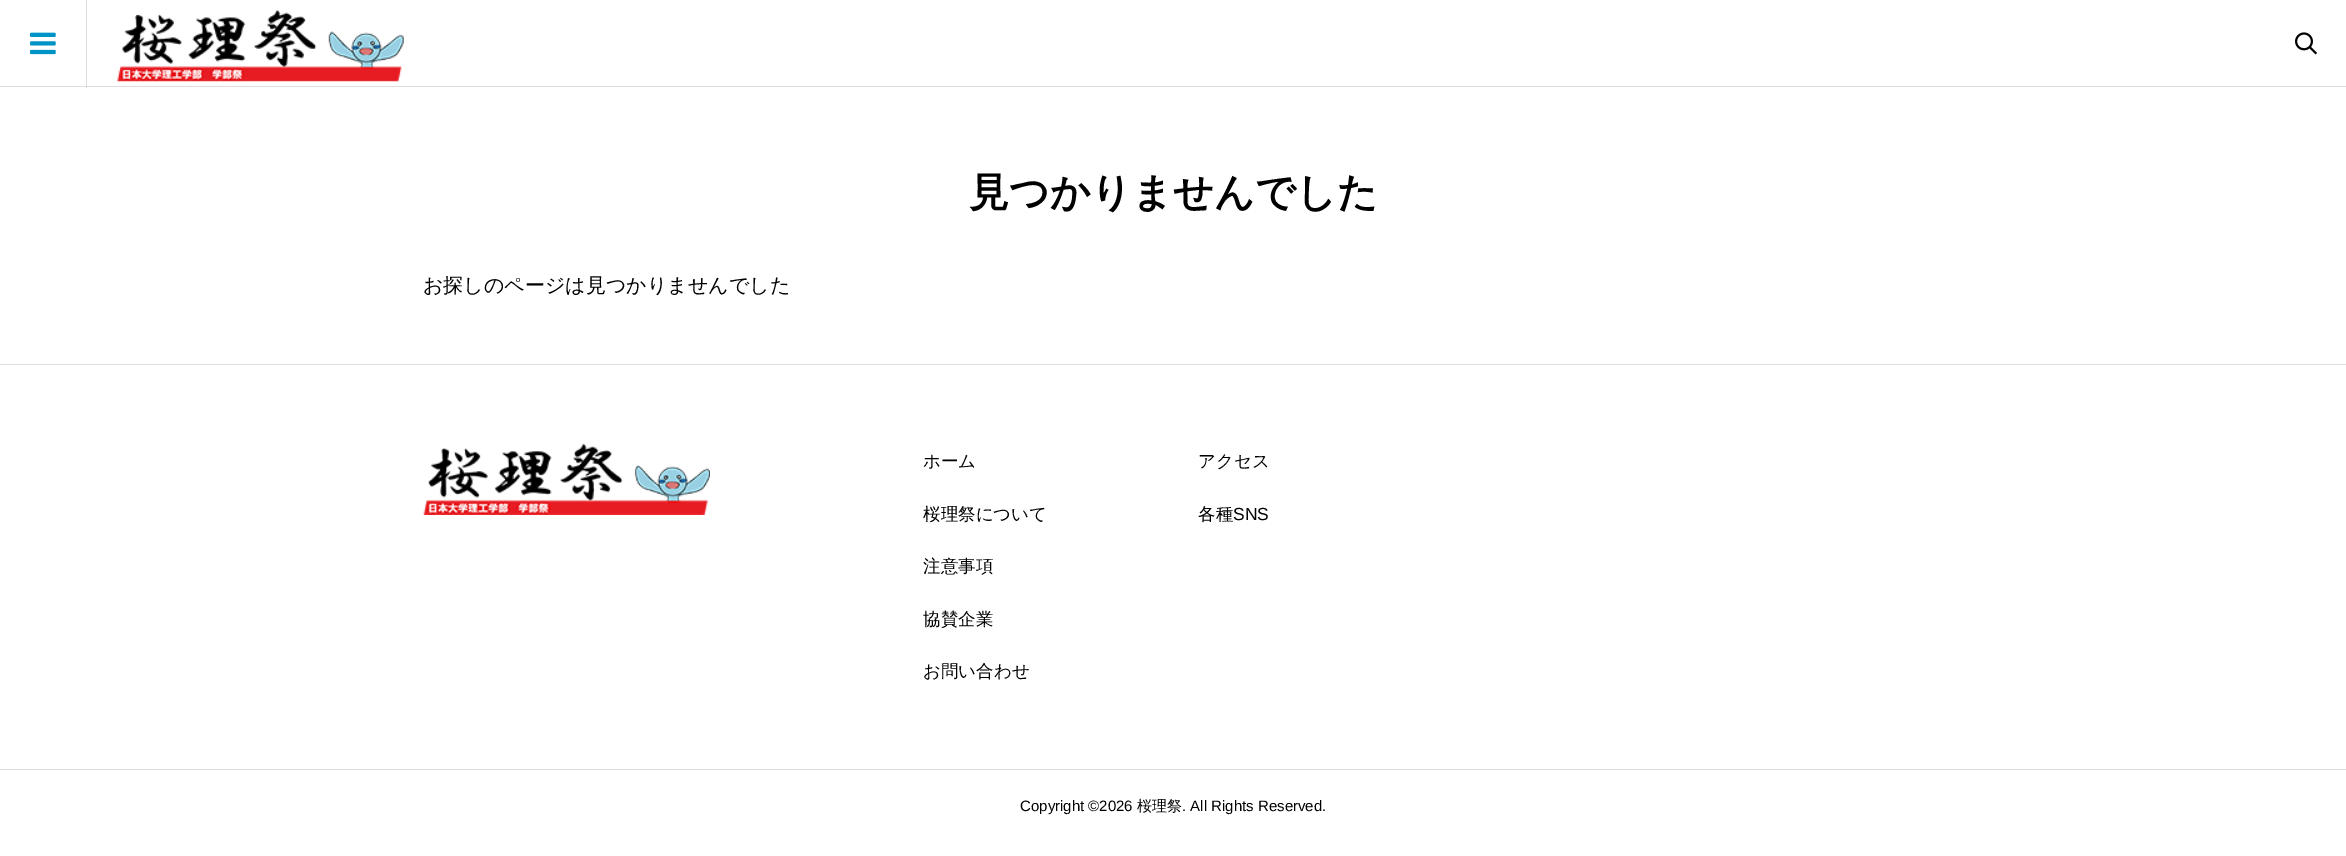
%!PS-Adobe-3.0
%%BoundingBox: 0 0 2346 856
%%LanguageLevel: 3
%%Pages: 1
%%EndComments
%%BeginProlog
/setink { dup -16 bitshift 255 div exch dup -8 bitshift 255 and 255 div exch 255 and 255 div setrgbcolor } def
/usefont { [ exch dup neg 0 0 3 -1 roll 0 0 ] selectfont } def
/drawimage { 5 dict begin { /h /w /y /x /name } { exch def } forall
  gsave x y translate w h scale
  w h 8 [w 0 0 h 0 0] name (r) file false 3 colorimage grestore end } def
%%EndProlog
%%BeginSetup
<< /PageSize [2346 856] >> setpagedevice
%%EndSetup
%%Page: 1 1
0 856 translate 1 -1 scale
4 setmiterlimit
16#FFFFFF setink
0 0 2346 856 rectfill
16#DDDDDD setink
0 86 2346 1 rectfill
86 0 1 88 rectfill
(img1.raw) 30 32 26 23 drawimage
(img2.raw) 117 10 287 72 drawimage
(img3.raw) 2295 32 22 23 drawimage
/WenQuanYiZenHei-Bold 40 usefont
16#000000 setink
969 206 moveto (見つかりませんでした) show
/WenQuanYiZenHei-Medium 20 usefont
423 292 moveto (お探しのページは見つかりませんでした) show
16#DDDDDD setink
0 364 2346 1 rectfill
(img4.raw) 423 443 287 72 drawimage
/WenQuanYiZenHei-Medium 17.5 usefont
16#000000 setink
[
    [(ホーム) 923 467]
    [(桜理祭について) 923 520]
    [(注意事項) 923 572]
    [(協賛企業) 923 625]
    [(お問い合わせ) 923 677]
    [(アクセス) 1198 467]
    [(各種) 1198 520]
] { aload pop moveto show } forall
/LiberationSans-Regular 17.5 usefont
1233 520 moveto (SNS) show
16#DDDDDD setink
0 769 2346 1 rectfill
/LiberationSans-Regular 15 usefont
16#000000 setink
1020 811 moveto (Copyright ©2026) show
/WenQuanYiZenHei-Medium 15 usefont
1137 811 moveto (桜理祭) show
/LiberationSans-Regular 15 usefont
1182 811 moveto (. All Rights Reserved.) show
showpage
%%EOF
